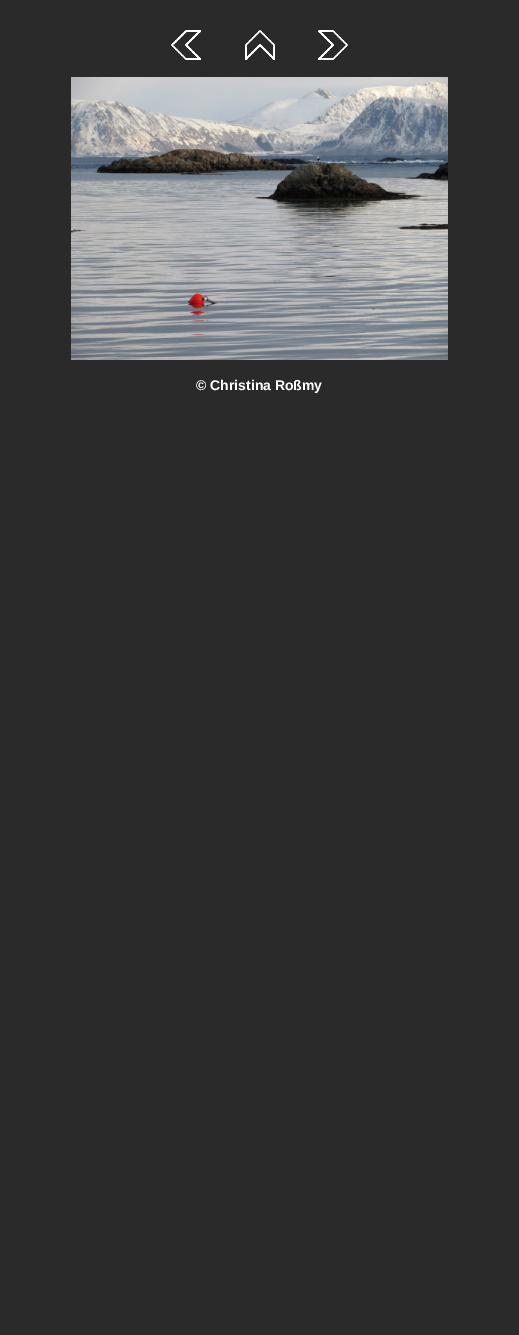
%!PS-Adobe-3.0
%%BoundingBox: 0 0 519 1335
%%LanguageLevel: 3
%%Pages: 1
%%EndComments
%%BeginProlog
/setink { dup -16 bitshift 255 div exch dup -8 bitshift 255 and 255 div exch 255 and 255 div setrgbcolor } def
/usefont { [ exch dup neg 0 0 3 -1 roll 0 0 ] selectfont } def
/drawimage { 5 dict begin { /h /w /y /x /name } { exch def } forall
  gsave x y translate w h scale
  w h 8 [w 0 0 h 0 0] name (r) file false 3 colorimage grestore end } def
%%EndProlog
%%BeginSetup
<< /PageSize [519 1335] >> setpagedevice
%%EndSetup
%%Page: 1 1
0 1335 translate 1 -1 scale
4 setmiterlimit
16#2A2A2A setink
0 0 519 1335 rectfill
(img1.raw) 171 30 30 30 drawimage
(img2.raw) 245 30 30 30 drawimage
(img3.raw) 318 30 30 30 drawimage
(img4.raw) 71 77 377 283 drawimage
/LiberationSans-Bold 14 usefont
16#FFFFFF setink
196 390 moveto (© Christina Roßmy) show
showpage
%%EOF
